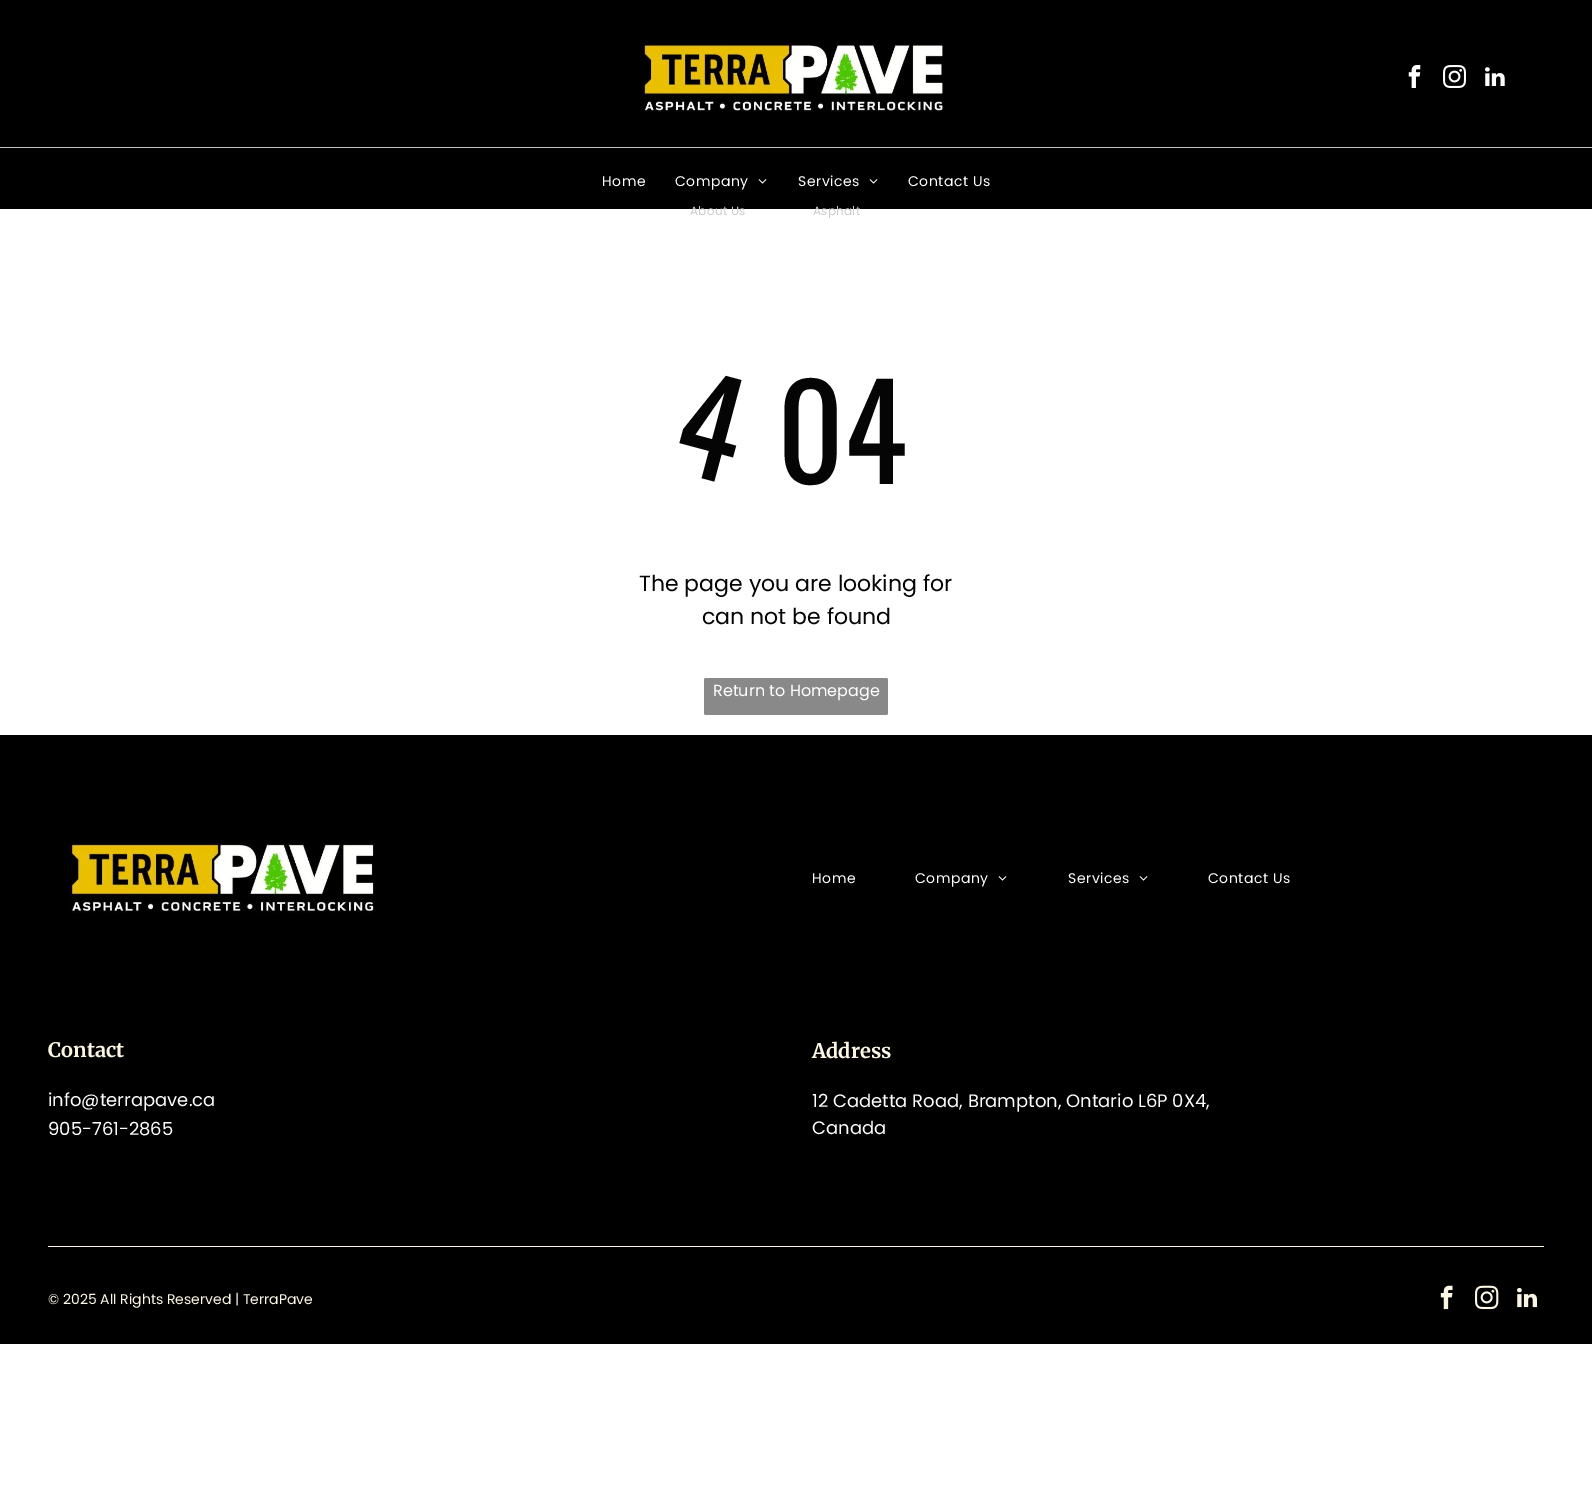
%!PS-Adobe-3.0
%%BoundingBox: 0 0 1592 1490
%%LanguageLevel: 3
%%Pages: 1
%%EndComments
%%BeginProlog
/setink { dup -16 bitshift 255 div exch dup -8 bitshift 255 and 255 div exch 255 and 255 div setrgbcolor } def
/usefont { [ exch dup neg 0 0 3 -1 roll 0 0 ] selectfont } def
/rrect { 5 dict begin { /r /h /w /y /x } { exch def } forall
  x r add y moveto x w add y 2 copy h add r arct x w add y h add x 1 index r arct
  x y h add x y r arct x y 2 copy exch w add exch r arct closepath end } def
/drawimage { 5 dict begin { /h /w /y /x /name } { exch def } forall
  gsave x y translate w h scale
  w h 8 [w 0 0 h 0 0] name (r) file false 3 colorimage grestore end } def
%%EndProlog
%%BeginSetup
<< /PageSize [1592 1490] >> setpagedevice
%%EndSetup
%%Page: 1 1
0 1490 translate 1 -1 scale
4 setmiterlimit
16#FFFFFF setink
0 0 1592 1490 rectfill
16#000000 setink
0 0 1592 209 rectfill
(img1.raw) 639 42 305 70 drawimage
(img2.raw) 1408 65 13 23 drawimage
(img3.raw) 1443 65 23 23 drawimage
(img4.raw) 1485 67 20 19 drawimage
16#C0C4C9 setink
0 147 1592 1 rectfill
/Poppins-Regular 14 usefont
16#FFFFFF setink
602 186 moveto 0.5 0 (Home) ashow
675 186 moveto 0.5 0 (Company) ashow
(img5.raw) 758 179 9 5 drawimage
/Poppins-Regular 12 usefont
16#CCCCCC setink
690 215 moveto 0.25 0 (About Us) ashow
/Poppins-Regular 14 usefont
16#FFFFFF setink
798 186 moveto 0.5 0 (Services) ashow
(img5.raw) 869 179 9 5 drawimage
/Poppins-Regular 12 usefont
16#CCCCCC setink
813 215 moveto 0.25 0 (Asphalt) ashow
/Poppins-Regular 14 usefont
16#FFFFFF setink
908 186 moveto 0.5 0 (Contact Us) ashow
/Oswald-Regular 130 usefont
16#040504 setink
gsave 667 469 translate 15 rotate 0 0 moveto (4) show grestore
777 484 moveto (04) show
/Poppins-Regular 22 usefont
639 591 moveto (The page you are looking for) show
702 624 moveto (can not be found) show
16#898989 setink
704 678 184 37 2 rrect fill
/Poppins-Regular 16 usefont
16#FFFFFF setink
713 696 moveto (Return to Homepage) show
16#000000 setink
0 735 1592 609 rectfill
(img6.raw) 66 841 308 72 drawimage
/Poppins-Regular 14 usefont
16#FFFFFF setink
812 883 moveto 0.5 0 (Home) ashow
915 883 moveto 0.5 0 (Company) ashow
(img5.raw) 998 876 9 5 drawimage
1068 883 moveto 0.5 0 (Services) ashow
(img5.raw) 1139 876 9 5 drawimage
1208 883 moveto 0.5 0 (Contact Us) ashow
/Merriweather-Bold 20 usefont
16#FCF7E4 setink
48 1057 moveto (Contact) show
/Poppins-Regular 18 usefont
16#FFFFFF setink
48 1106 moveto (info@terrapave.ca) show
48 1135 moveto (905-761-2865) show
/Merriweather-Bold 20 usefont
16#FCF7E4 setink
812 1058 moveto (Address) show
/Poppins-Regular 18 usefont
16#FFFFFF setink
812 1107 moveto (12 Cadetta Road, Brampton, Ontario L6P 0X4,) show
812 1134 moveto (Canada) show
16#FCF7E4 setink
48 1246 1496 1 rectfill
/Poppins-Regular 14 usefont
48 1304 moveto (© 2025 All Rights Reserved | TerraPave) show
(img7.raw) 1440 1285 13 25 drawimage
(img8.raw) 1475 1285 24 25 drawimage
(img9.raw) 1517 1287 20 21 drawimage
showpage
%%EOF
